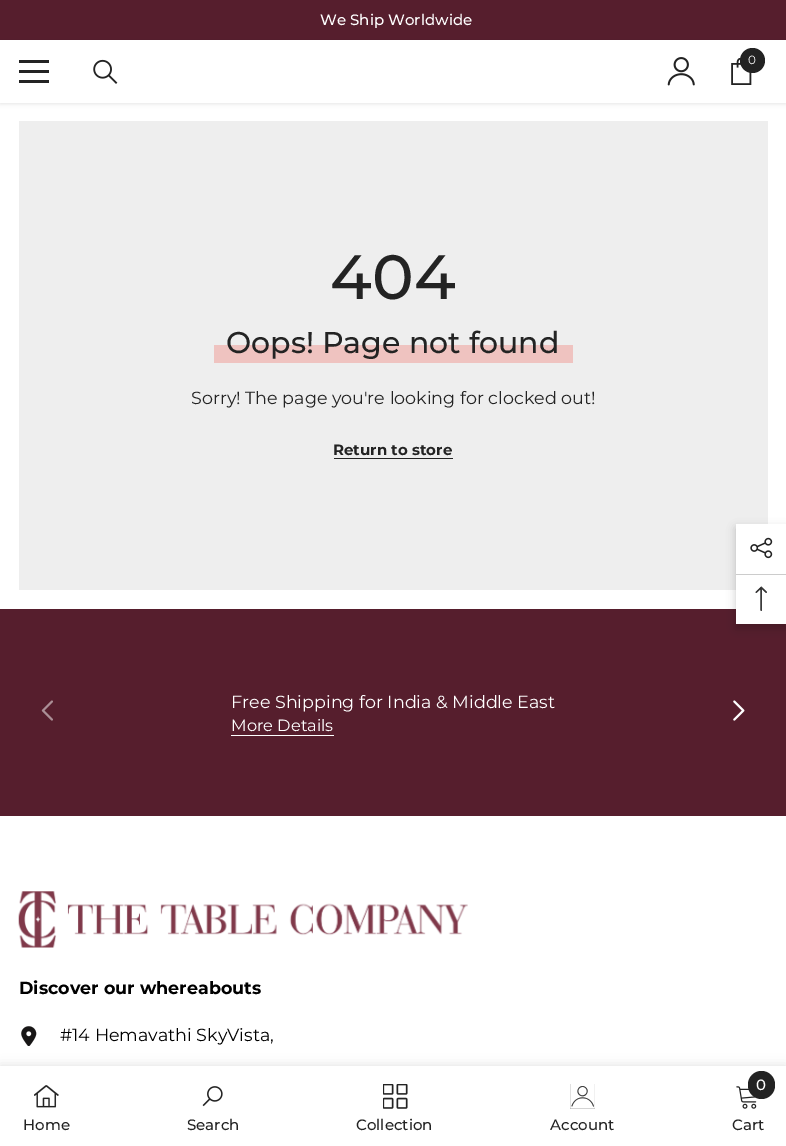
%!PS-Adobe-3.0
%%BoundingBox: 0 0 786 1146
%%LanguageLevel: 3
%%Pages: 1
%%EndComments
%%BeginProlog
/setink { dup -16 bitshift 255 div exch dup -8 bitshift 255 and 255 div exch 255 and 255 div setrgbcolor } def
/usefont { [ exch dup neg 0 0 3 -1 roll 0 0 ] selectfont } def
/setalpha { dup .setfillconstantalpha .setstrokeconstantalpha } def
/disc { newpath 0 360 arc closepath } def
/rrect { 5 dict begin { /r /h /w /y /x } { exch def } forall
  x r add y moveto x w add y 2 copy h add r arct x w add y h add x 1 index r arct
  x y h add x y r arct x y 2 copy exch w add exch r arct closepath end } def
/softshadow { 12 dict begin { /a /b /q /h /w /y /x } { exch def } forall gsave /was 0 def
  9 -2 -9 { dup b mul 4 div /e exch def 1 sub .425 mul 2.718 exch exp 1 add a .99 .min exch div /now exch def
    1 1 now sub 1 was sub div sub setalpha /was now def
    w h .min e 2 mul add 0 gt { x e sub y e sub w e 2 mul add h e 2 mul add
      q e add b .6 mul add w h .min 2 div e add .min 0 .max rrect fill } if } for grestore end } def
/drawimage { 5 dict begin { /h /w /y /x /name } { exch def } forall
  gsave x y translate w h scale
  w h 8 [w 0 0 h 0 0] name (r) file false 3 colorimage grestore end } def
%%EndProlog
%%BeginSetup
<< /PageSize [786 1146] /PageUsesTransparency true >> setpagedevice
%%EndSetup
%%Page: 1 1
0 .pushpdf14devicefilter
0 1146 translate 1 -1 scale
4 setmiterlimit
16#FFFFFF setink
0 0 786 1146 rectfill
16#561E2D setink
0 0 786 40 rectfill
/Montserrat-Medium 15 usefont
16#FFFFFF setink
320 25 moveto (We Ship Worldwide) show
16#000000 setink
0 41 786 63 0 2 0.1 softshadow
[
    [0 40 786 63 16#FFFFFF]
    [19 70 30 3 16#232323]
    [19 60 30 3 16#232323]
    [19 80 30 3 16#232323]
] { aload pop setink rectfill } forall
(img1.raw) 93 59 25 25 drawimage
(img2.raw) 667 57 28 29 drawimage
(img3.raw) 731 58 21 27 drawimage
752.5 60.5 12.5 disc fill
/Montserrat-Regular 12 usefont
16#FFFFFF setink
748 64 moveto (0) show
16#EEEEEE setink
19 121 749 469 rectfill
/Montserrat-Medium 62.5 usefont
16#232323 setink
330 299 moveto (404) show
16#EFC3C0 setink
214 345 359 18 rectfill
/Montserrat-Medium 30 usefont
16#232323 setink
226 353 moveto (Oops! Page not found) show
/Montserrat-Regular 17.5 usefont
191 404 moveto (Sorry! The page you're looking for clocked out!) show
/Montserrat-Bold 15 usefont
333 455 moveto (Return to store) show
334 458 119 1 rectfill
16#561E2D setink
0 609 786 207 rectfill
/Montserrat-Regular 17.5 usefont
16#FFFFFF setink
231 708 moveto (Free Shipping for India & Middle East) show
/Montserrat-Regular 16.25 usefont
231 731 moveto (More Details) show
231 735 103 1 rectfill
(img4.raw) 41 700 12 21 drawimage
(img5.raw) 733 700 12 21 drawimage
(img6.raw) 18 891 450 57 drawimage
/Montserrat-Bold 17.5 usefont
16#000000 setink
19 994 moveto (Discover our whereabouts) show
(img7.raw) 21 1026 16 20 drawimage
/Montserrat-Regular 17.5 usefont
60 1041 moveto (#14 Hemavathi SkyVista,) show
0 1066 786 80 0 5.5 0.12 softshadow
16#FFFFFF setink
0 1066 786 80 rectfill
(img8.raw) 34 1085 25 23 drawimage
/Montserrat-Medium 15 usefont
16#232323 setink
23 1130 moveto (Home) show
(img9.raw) 202 1086 21 21 drawimage
187 1130 moveto (Search) show
(img10.raw) 383 1084 25 25 drawimage
356 1130 moveto (Collection) show
(img11.raw) 570 1084 25 25 drawimage
550 1130 moveto (Account) show
(img12.raw) 736 1086 21 23 drawimage
748 1071 27 28 13.5 rrect fill
16#FFFFFF setink
756 1090 moveto (0) show
16#232323 setink
732 1130 moveto (Cart) show
16#000000 setink
736 528 50 100 0 4.5 0.2 softshadow
16#FFFFFF setink
736 524 50 100 rectfill
(img13.raw) 750 537 23 22 drawimage
16#CCCCCC setink
736 574 50 1 rectfill
(img14.raw) 755 586 12 25 drawimage
.poppdf14devicefilter showpage
%%EOF
